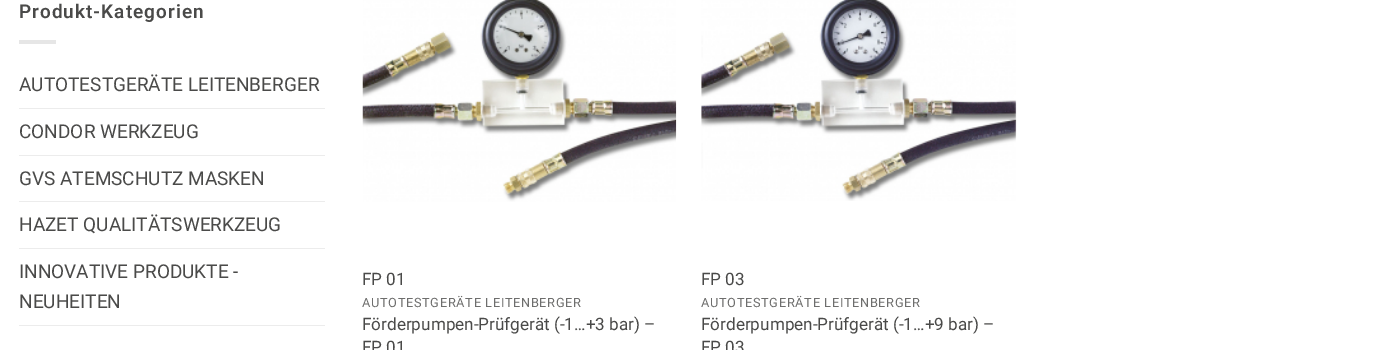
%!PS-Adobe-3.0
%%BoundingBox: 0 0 1373 350
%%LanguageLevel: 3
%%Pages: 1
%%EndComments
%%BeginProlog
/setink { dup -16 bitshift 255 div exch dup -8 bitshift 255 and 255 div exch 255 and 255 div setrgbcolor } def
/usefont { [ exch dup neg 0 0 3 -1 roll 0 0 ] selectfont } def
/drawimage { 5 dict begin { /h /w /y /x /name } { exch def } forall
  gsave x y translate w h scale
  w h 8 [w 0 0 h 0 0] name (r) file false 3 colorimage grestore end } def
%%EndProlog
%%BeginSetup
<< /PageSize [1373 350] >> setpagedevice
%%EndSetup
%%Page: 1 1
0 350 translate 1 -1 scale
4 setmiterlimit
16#FFFFFF setink
0 0 1373 350 rectfill
/Roboto-SemiBold 19 usefont
16#4A4A49 setink
19 18 moveto 1 0 (Produkt-Kategorien) ashow
16#E6E6E6 setink
19 40 37 4 rectfill
/Roboto-Regular 19 usefont
16#4A4A49 setink
19 91 moveto (AUTOTESTGERÄTE LEITENBERGER) show
16#ECECEC setink
19 108 306 1 rectfill
16#4A4A49 setink
19 138 moveto (CONDOR WERKZEUG) show
16#ECECEC setink
19 155 306 1 rectfill
16#4A4A49 setink
19 185 moveto (GVS ATEMSCHUTZ MASKEN) show
16#ECECEC setink
19 201 306 1 rectfill
16#4A4A49 setink
19 231 moveto (HAZET QUALITÄTSWERKZEUG) show
16#ECECEC setink
19 248 306 1 rectfill
16#4A4A49 setink
19 278 moveto (INNOVATIVE PRODUKTE -) show
19 308 moveto (NEUHEITEN) show
16#ECECEC setink
19 325 306 1 rectfill
(img1.raw) 362 0 315 202 drawimage
/Roboto-Regular 17.1 usefont
16#4A4A49 setink
362 285 moveto (FP 01) show
/Roboto-Regular 12.8 usefont
16#6E6E6D setink
362 307 moveto 0.65 0 (AUTOTESTGERÄTE LEITENBERGER) ashow
/Roboto-Regular 17.1 usefont
16#4A4A49 setink
362 330 moveto (Förderpumpen-Prüfgerät \(-1…+3 bar\) –) show
362 353 moveto (FP 01) show
(img2.raw) 701 0 316 201 drawimage
701 285 moveto (FP 03) show
/Roboto-Regular 12.8 usefont
16#6E6E6D setink
701 307 moveto 0.65 0 (AUTOTESTGERÄTE LEITENBERGER) ashow
/Roboto-Regular 17.1 usefont
16#4A4A49 setink
701 330 moveto (Förderpumpen-Prüfgerät \(-1…+9 bar\) –) show
701 353 moveto (FP 03) show
showpage
%%EOF
